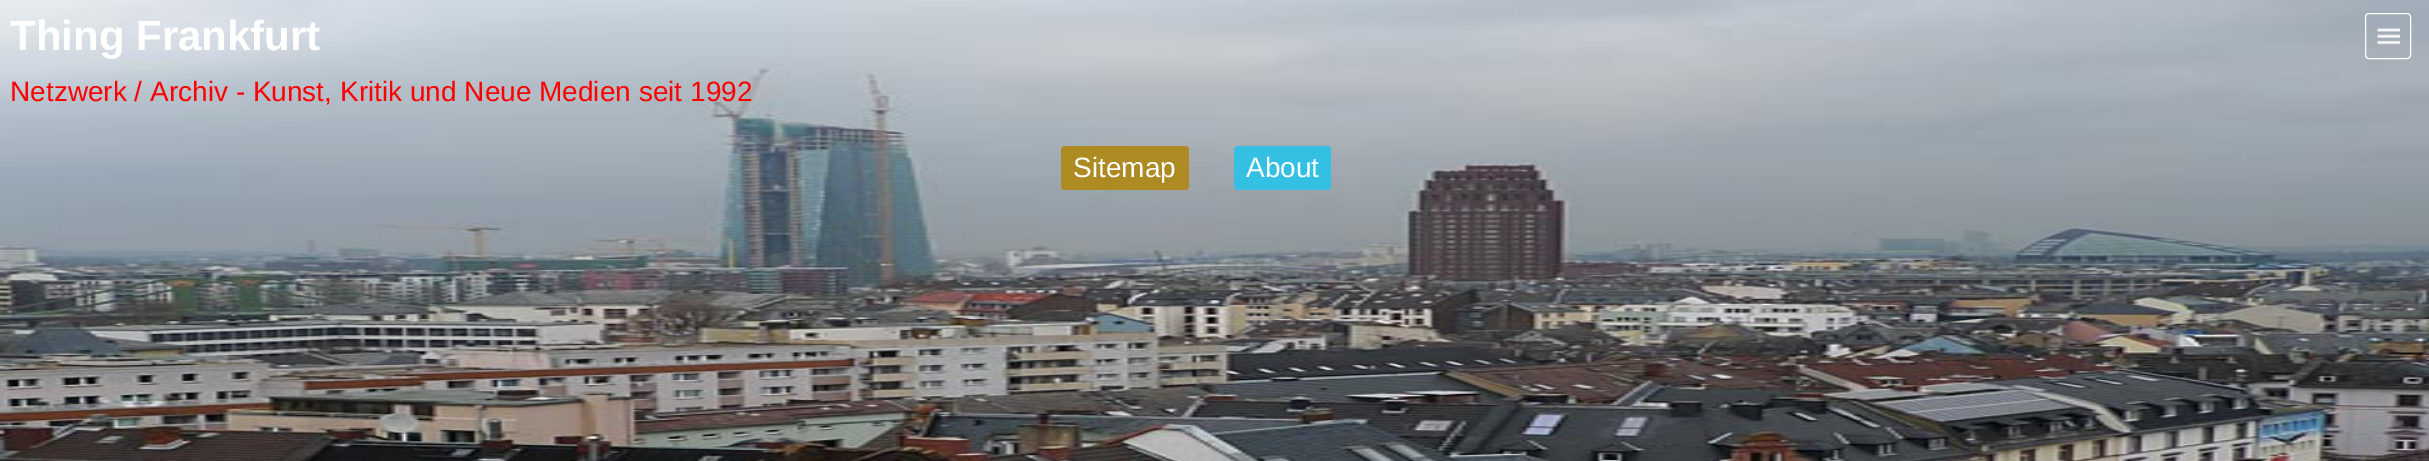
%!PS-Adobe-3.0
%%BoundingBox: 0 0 2429 461
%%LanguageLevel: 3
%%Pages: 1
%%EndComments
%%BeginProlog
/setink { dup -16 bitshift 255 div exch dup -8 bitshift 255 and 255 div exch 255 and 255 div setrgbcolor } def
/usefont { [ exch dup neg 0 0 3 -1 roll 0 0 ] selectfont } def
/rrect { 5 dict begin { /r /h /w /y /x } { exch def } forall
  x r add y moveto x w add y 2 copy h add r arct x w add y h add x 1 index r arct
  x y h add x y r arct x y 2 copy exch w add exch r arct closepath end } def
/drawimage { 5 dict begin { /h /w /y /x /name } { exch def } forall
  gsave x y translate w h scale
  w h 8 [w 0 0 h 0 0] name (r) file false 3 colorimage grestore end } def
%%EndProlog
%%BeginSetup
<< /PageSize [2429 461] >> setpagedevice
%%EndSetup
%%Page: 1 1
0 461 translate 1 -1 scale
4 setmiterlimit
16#FFFFFF setink
0 0 2429 461 rectfill
(img1.raw) 0 0 2429 461 drawimage
/LiberationSans-Bold 42 usefont
10 50 moveto (Thing Frankfurt) show
(img2.raw) 2377 28 23 17 drawimage
2365.5 13.5 45 45 3.5 rrect stroke
/LiberationSans-Regular 28 usefont
16#FF0000 setink
10 101 moveto (Netzwerk / Archiv - Kunst, Kritik und Neue Medien seit 1992) show
16#AD8A22 setink
1061 146 128 44 4 rrect fill
16#FFFFFF setink
1073 177 moveto (Sitemap) show
16#33C0E3 setink
1234 146 97 44 4 rrect fill
16#FFFFFF setink
1246 177 moveto (About) show
showpage
%%EOF
